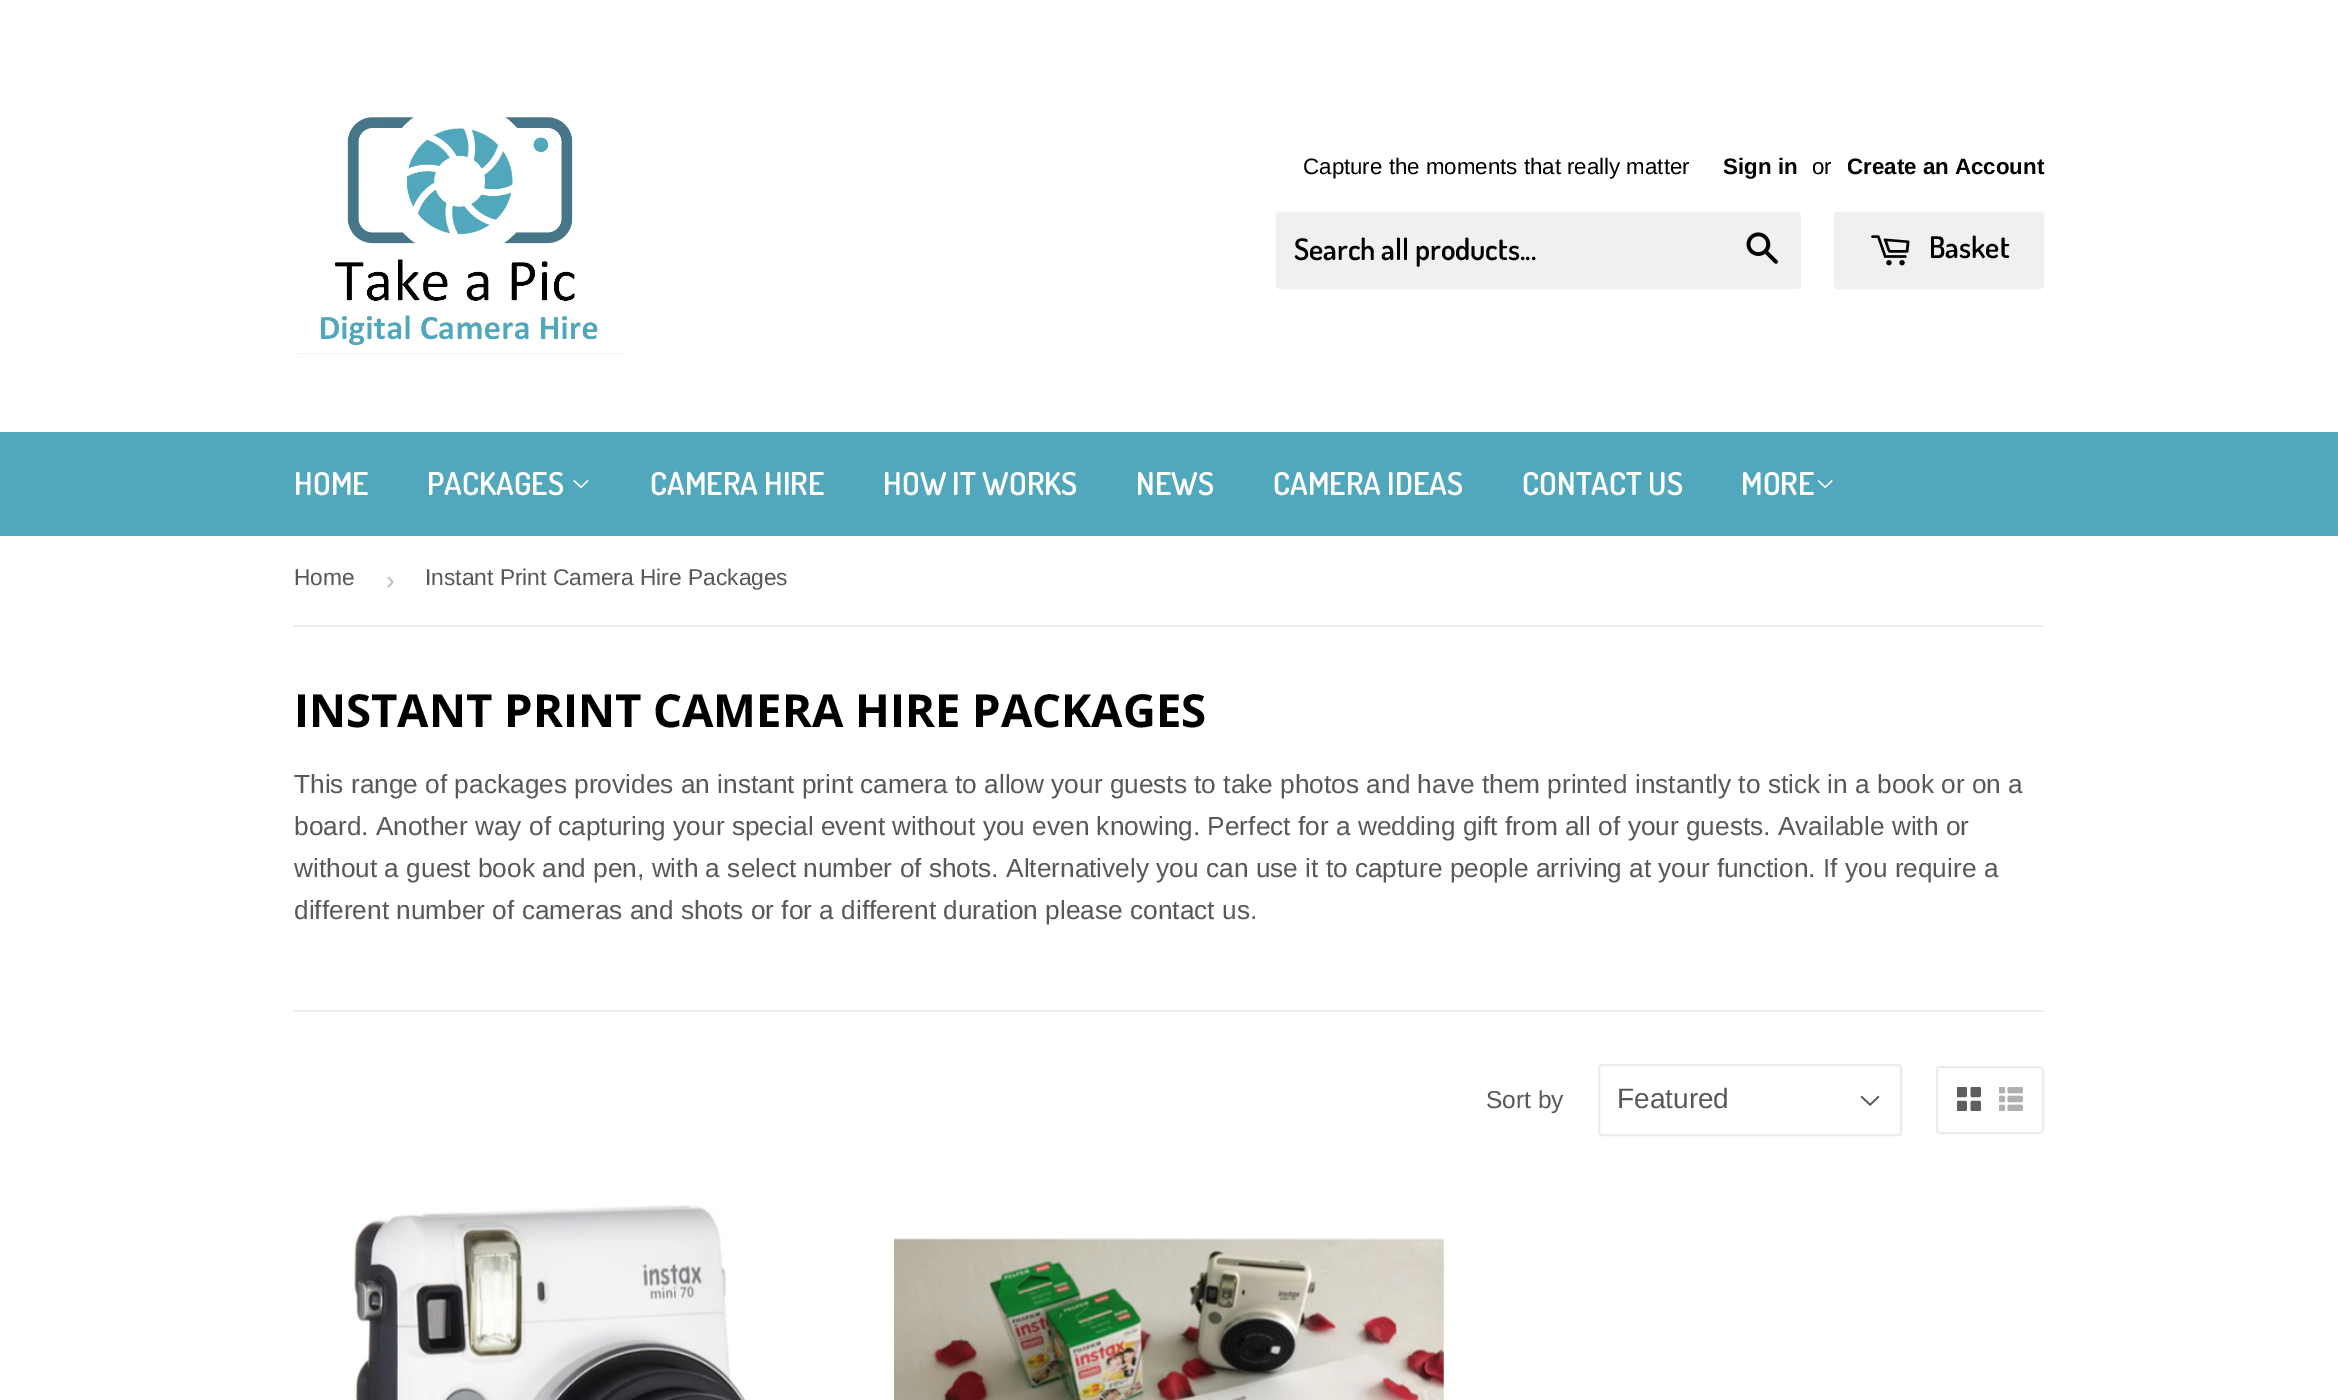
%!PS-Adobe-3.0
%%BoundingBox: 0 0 2338 1400
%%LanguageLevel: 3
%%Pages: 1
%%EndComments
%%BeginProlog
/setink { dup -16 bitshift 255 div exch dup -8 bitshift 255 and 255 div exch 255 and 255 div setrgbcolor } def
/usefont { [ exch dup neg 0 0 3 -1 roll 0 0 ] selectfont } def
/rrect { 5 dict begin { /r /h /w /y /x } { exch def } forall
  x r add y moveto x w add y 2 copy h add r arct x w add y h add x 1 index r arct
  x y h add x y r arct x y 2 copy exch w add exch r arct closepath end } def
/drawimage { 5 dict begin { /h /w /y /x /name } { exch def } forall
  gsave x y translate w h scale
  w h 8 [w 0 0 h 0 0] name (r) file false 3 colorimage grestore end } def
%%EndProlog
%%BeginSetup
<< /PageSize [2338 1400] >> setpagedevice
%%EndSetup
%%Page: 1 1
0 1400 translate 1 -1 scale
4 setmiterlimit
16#FFFFFF setink
0 0 2338 1400 rectfill
(img1.raw) 294 117 331 237 drawimage
/LiberationSans-Regular 22.3 usefont
16#000000 setink
1303 174 moveto (Capture the moments that really matter) show
/LiberationSans-Bold 22.3 usefont
1723 174 moveto (Sign in) show
/LiberationSans-Regular 22.3 usefont
1812 174 moveto (or) show
/LiberationSans-Bold 22.3 usefont
1847 174 moveto (Create an Account) show
16#F0F0F0 setink
1276 212 525 77 4 rrect fill
/Dosis-SemiBold 29.75 usefont
16#000000 setink
1294 260 moveto (Search all products...) show
(img2.raw) 1746 232 32 32 drawimage
16#F0F0F0 setink
1834 212 210 77 4 rrect fill
(img3.raw) 1871 235 39 31 drawimage
16#000000 setink
1929 258 moveto (Basket) show
16#51A8BC setink
0 432 2338 104 rectfill
/Dosis-SemiBold 31.5 usefont
16#FFFFFF setink
294 495 moveto (HOME) show
427 495 moveto (PACKAGES) show
(img4.raw) 573 480 16 9 drawimage
[
    [(CAMERA HIRE) 650 495]
    [(HOW IT WORKS) 883 495]
    [(NEWS) 1136 495]
    [(CAMERA IDEAS) 1273 495]
    [(CONTACT US) 1522 495]
    [(MORE) 1741 495]
] { aload pop moveto show } forall
(img5.raw) 1817 480 16 9 drawimage
16#ECECEC setink
294 625 1750 2 rectfill
/LiberationSans-Regular 22.75 usefont
16#585858 setink
294 585 moveto (Home) show
/LiberationSans-Regular 26.25 usefont
16#BBBBBB setink
386 589 moveto (›) show
/LiberationSans-Regular 22.75 usefont
16#585858 setink
425 585 moveto (Instant Print Camera Hire Packages) show
/OpenSans-Bold 45.5 usefont
16#000000 setink
294 727 moveto (INSTANT PRINT CAMERA HIRE PACKAGES) show
/LiberationSans-Regular 26.25 usefont
16#585858 setink
[
    [(This range of packages provides an instant print camera to allow your guests to take photos and have them printed instantly to stick in a book or on a) 294 793]
    [(board. Another way of capturing your special event without you even knowing. Perfect for a wedding gift from all of your guests. Available with or) 294 835]
    [(without a guest book and pen, with a select number of shots. Alternatively you can use it to capture people arriving at your function. If you require a) 294 877]
    [(different number of cameras and shots or for a different duration please contact us.) 294 919]
] { aload pop moveto show } forall
16#ECECEC setink
294 1010 1750 2 rectfill
/LiberationSans-Regular 24.5 usefont
16#585858 setink
1486 1108 moveto (Sort by) show
(img6.raw) 1860 1095 20 11 drawimage
16#ECECEC setink
2 setlinewidth
1599 1065 302 70 3 rrect stroke
/LiberationSans-Regular 28 usefont
16#585858 setink
1617 1108 moveto (Featured) show
16#ECECEC setink
1937 1067 106 66 3 rrect stroke
(img7.raw) 1957 1087 24 24 drawimage
(img8.raw) 1999 1087 24 24 drawimage
(img9.raw) 353 1205 393 195 drawimage
(img10.raw) 894 1238 550 162 drawimage
showpage
%%EOF
